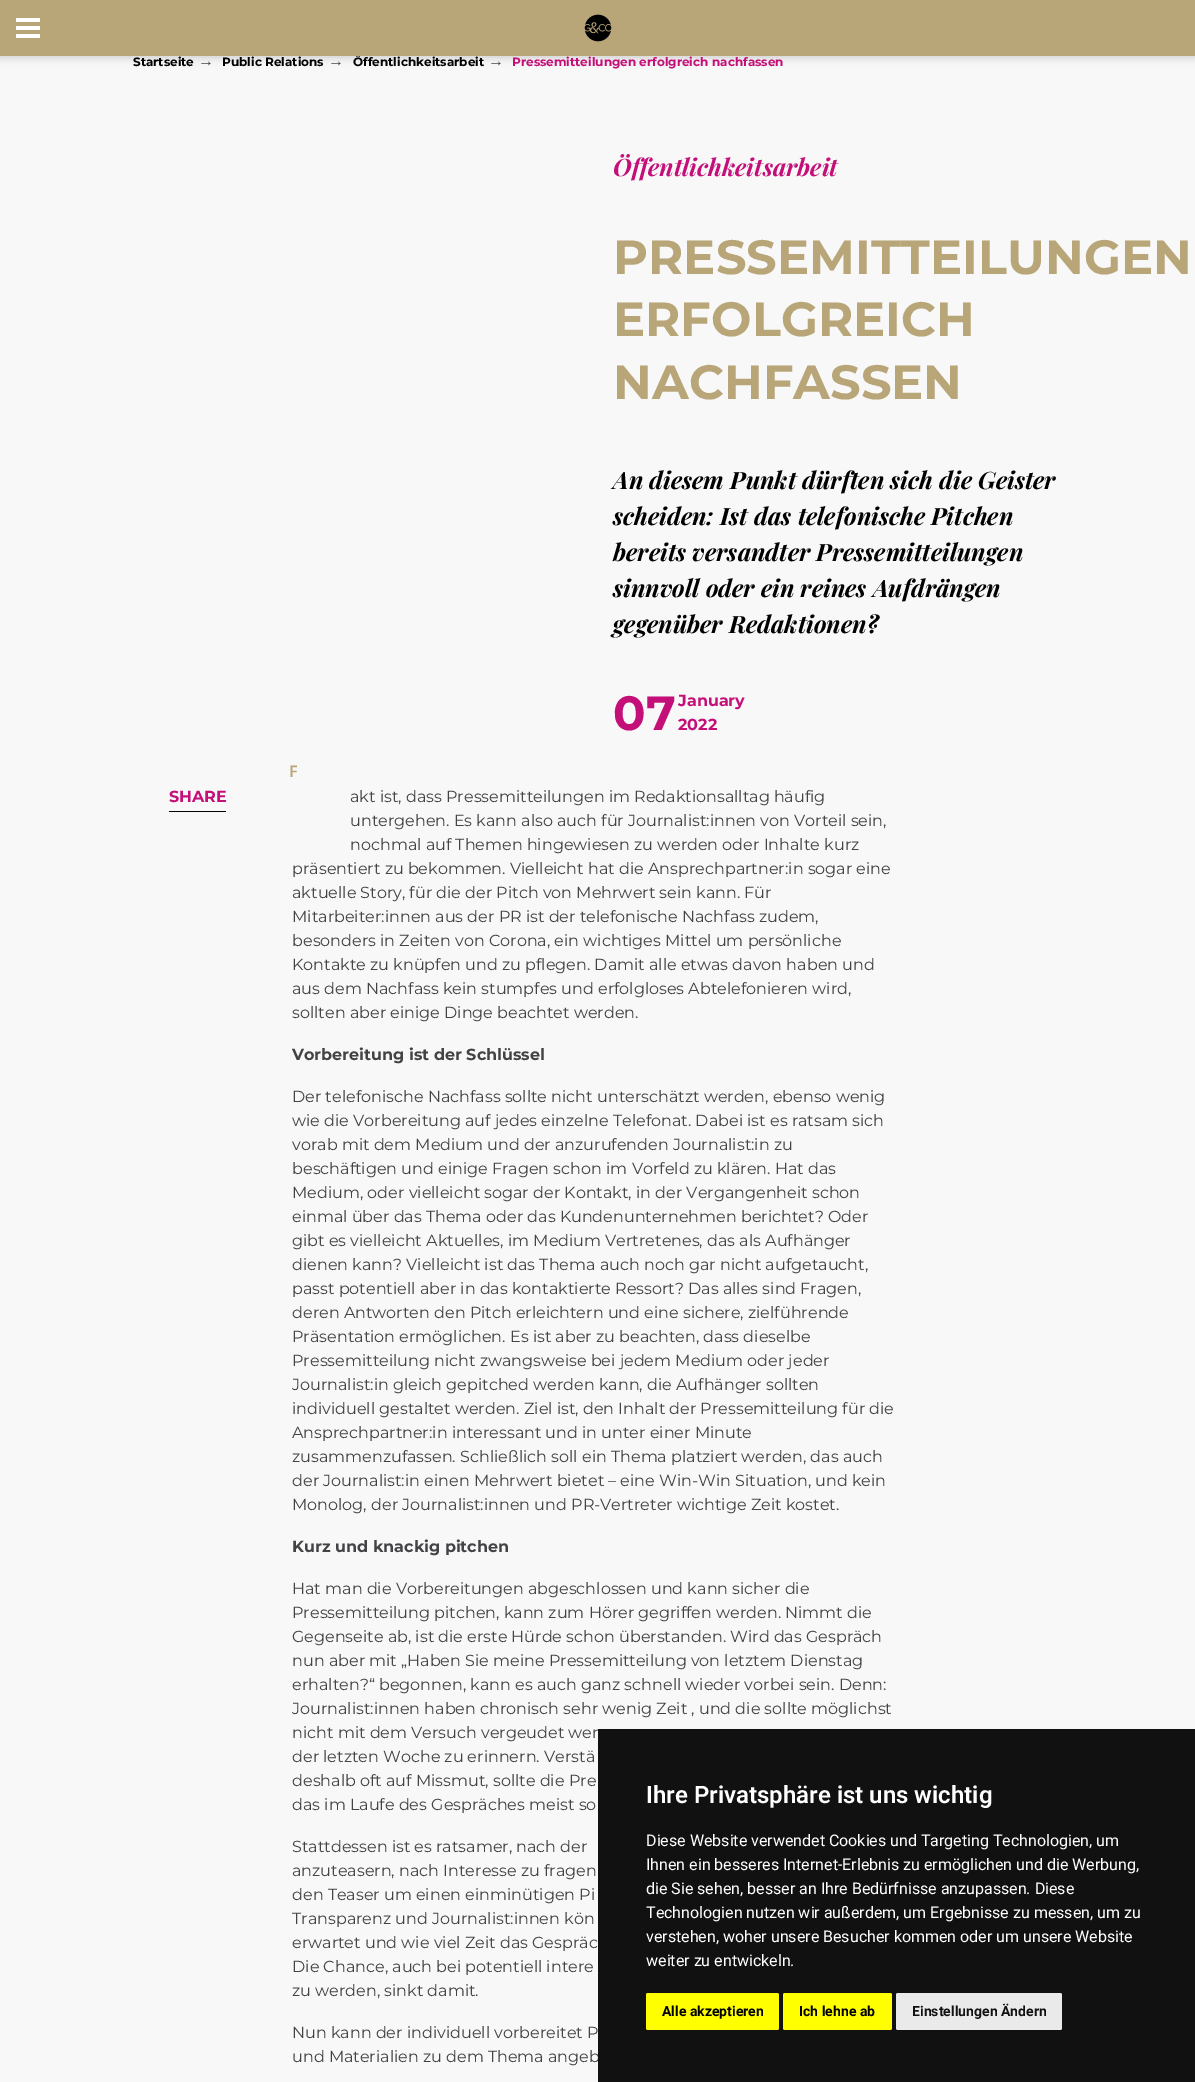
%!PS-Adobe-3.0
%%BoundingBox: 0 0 1195 2082
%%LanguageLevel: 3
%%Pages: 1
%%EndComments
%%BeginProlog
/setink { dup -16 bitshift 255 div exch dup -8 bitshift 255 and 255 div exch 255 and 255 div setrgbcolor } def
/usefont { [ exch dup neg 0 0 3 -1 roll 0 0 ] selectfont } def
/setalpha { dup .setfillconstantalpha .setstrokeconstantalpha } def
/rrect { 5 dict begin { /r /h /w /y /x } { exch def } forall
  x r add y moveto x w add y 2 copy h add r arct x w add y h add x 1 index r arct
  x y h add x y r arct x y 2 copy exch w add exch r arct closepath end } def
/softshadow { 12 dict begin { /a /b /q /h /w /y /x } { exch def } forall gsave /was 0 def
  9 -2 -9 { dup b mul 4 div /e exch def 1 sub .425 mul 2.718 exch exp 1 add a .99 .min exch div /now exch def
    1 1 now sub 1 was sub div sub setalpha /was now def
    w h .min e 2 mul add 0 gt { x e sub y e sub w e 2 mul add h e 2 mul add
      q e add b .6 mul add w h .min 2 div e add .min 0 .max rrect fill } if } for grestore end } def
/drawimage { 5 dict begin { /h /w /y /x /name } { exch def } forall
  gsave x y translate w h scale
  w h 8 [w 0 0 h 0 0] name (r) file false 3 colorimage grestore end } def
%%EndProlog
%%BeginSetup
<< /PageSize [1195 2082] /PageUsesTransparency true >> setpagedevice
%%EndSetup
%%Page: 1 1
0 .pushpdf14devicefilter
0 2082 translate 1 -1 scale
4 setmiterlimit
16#F8F8F8 setink
0 0 1195 2082 rectfill
16#434345 setink
0 1 1195 56 0 5 0.3 softshadow
/Montserrat-Thin 12 usefont
16#000000 setink
353 66 moveto (Öffentlichkeitsarbeit) show
[
    [0 0 1195 56 16#B8A679]
    [16 26 24 4 16#FFFFFF]
    [16 18 24 4 16#FFFFFF]
    [16 34 24 4 16#FFFFFF]
] { aload pop setink rectfill } forall
(img1.raw) 584 14 28 28 drawimage
16#000000 setink
133 66 moveto (Startseite) show
/LiberationSerif-Regular 16 usefont
16#434345 setink
198 66 moveto (→) show
/Montserrat-Thin 12 usefont
16#000000 setink
222 66 moveto (Public Relations) show
/LiberationSerif-Regular 16 usefont
16#434345 setink
328 66 moveto (→) show
488 66 moveto (→) show
/Montserrat-Thin 12 usefont
16#C40F79 setink
512 66 moveto (Pressemitteilungen erfolgreich nachfassen) show
/PlayfairDisplay-BoldItalic 24 usefont
613 176 moveto (Öffentlichkeitsarbeit) show
/Montserrat-Thin 48 usefont
16#B8A679 setink
[
    [(PRESSEMITTEILUNGEN) 613 274]
    [(ERFOLGREICH) 613 336]
    [(NACHFASSEN) 613 399]
] { aload pop moveto show } forall
/PlayfairDisplay-BoldItalic 24 usefont
16#000000 setink
[
    [(An diesem Punkt dürften sich die Geister) 613 489]
    [(scheiden: Ist das telefonische Pitchen) 613 525]
    [(bereits versandter Pressemitteilungen) 613 561]
    [(sinnvoll oder ein reines Aufdrängen) 613 597]
    [(gegenüber Redaktionen?) 613 633]
] { aload pop moveto show } forall
/Montserrat-Thin 48 usefont
16#C40F79 setink
613 730 moveto (07) show
/Montserrat-Thin 16 usefont
[
    [(January) 678 706]
    [(2022) 678 730]
    [(SHARE) 169 802]
] { aload pop moveto show } forall
16#000000 setink
169 811 57 1 rectfill
/NotoSans-SemiBold 16 usefont
16#B8A679 setink
289 777 moveto (F) show
/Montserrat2-Thin 16 usefont
16#434345 setink
[
    [(akt ist, dass Pressemitteilungen im Redaktionsalltag häufig) 350 802]
    [(untergehen. Es kann also auch für Journalist:innen von Vorteil sein,) 350 826]
    [(nochmal auf Themen hingewiesen zu werden oder Inhalte kurz) 350 850]
    [(präsentiert zu bekommen. Vielleicht hat die Ansprechpartner:in sogar eine) 292 874]
    [(aktuelle Story, für die der Pitch von Mehrwert sein kann. Für) 292 898]
    [(Mitarbeiter:innen aus der PR ist der telefonische Nachfass zudem,) 292 922]
    [(besonders in Zeiten von Corona, ein wichtiges Mittel um persönliche) 292 946]
    [(Kontakte zu knüpfen und zu pflegen. Damit alle etwas davon haben und) 292 970]
    [(aus dem Nachfass kein stumpfes und erfolgloses Abtelefonieren wird,) 292 994]
    [(sollten aber einige Dinge beachtet werden.) 292 1018]
] { aload pop moveto show } forall
/Montserrat-Thin 16 usefont
292 1060 moveto (Vorbereitung ist der Schlüssel) show
/Montserrat2-Thin 16 usefont
[
    [(Der telefonische Nachfass sollte nicht unterschätzt werden, ebenso wenig) 292 1102]
    [(wie die Vorbereitung auf jedes einzelne Telefonat. Dabei ist es ratsam sich) 292 1126]
    [(vorab mit dem Medium und der anzurufenden Journalist:in zu) 292 1150]
    [(beschäftigen und einige Fragen schon im Vorfeld zu klären. Hat das) 292 1174]
    [(Medium, oder vielleicht sogar der Kontakt, in der Vergangenheit schon) 292 1198]
    [(einmal über das Thema oder das Kundenunternehmen berichtet? Oder) 292 1222]
    [(gibt es vielleicht Aktuelles, im Medium Vertretenes, das als Aufhänger) 292 1246]
    [(dienen kann? Vielleicht ist das Thema auch noch gar nicht aufgetaucht,) 292 1270]
    [(passt potentiell aber in das kontaktierte Ressort? Das alles sind Fragen,) 292 1294]
    [(deren Antworten den Pitch erleichtern und eine sichere, zielführende) 292 1318]
    [(Präsentation ermöglichen. Es ist aber zu beachten, dass dieselbe) 292 1342]
    [(Pressemitteilung nicht zwangsweise bei jedem Medium oder jeder) 292 1366]
    [(Journalist:in gleich gepitched werden kann, die Aufhänger sollten) 292 1390]
    [(individuell gestaltet werden. Ziel ist, den Inhalt der Pressemitteilung für die) 292 1414]
    [(Ansprechpartner:in interessant und in unter einer Minute) 292 1438]
    [(zusammenzufassen. Schließlich soll ein Thema platziert werden, das auch) 292 1462]
    [(der Journalist:in einen Mehrwert bietet – eine Win-Win Situation, und kein) 292 1486]
    [(Monolog, der Journalist:innen und PR-Vertreter wichtige Zeit kostet.) 292 1510]
] { aload pop moveto show } forall
/Montserrat-Thin 16 usefont
292 1552 moveto (Kurz und knackig pitchen) show
/Montserrat2-Thin 16 usefont
[
    [(Hat man die Vorbereitungen abgeschlossen und kann sicher die) 292 1594]
    [(Pressemitteilung pitchen, kann zum Hörer gegriffen werden. Nimmt die) 292 1618]
    [(Gegenseite ab, ist die erste Hürde schon überstanden. Wird das Gespräch) 292 1642]
    [(nun aber mit „Haben Sie meine Pressemitteilung von letztem Dienstag) 292 1666]
    [(erhalten?“ begonnen, kann es auch ganz schnell wieder vorbei sein. Denn:) 292 1690]
    [(Journalist:innen haben chronisch sehr wenig Zeit , und die sollte möglichst) 292 1714]
    [(nicht mit dem Versuch vergeudet wer) 292 1738]
    [(der letzten Woche zu erinnern. Verstä) 292 1762]
    [(deshalb oft auf Missmut, sollte die Pre) 292 1786]
    [(das im Laufe des Gespräches meist so) 292 1810]
    [(Stattdessen ist es ratsamer, nach der) 292 1852]
    [(anzuteasern, nach Interesse zu fragen) 292 1876]
    [(den Teaser um einen einminütigen Pi) 292 1900]
    [(Transparenz und Journalist:innen kön) 292 1924]
    [(erwartet und wie viel Zeit das Gespräc) 292 1948]
    [(Die Chance, auch bei potentiell intere) 292 1972]
    [(zu werden, sinkt damit.) 292 1996]
    [(Nun kann der individuell vorbereitet P) 292 2038]
    [(und Materialien zu dem Thema angeb) 292 2062]
] { aload pop moveto show } forall
16#111111 setink
598 1729 597 353 rectfill
/Roboto-SemiBold 24 usefont
16#FFFFFF setink
646 1803 moveto (Ihre Privatsphäre ist uns wichtig) show
/Roboto-Regular 16 usefont
[
    [(Diese Website verwendet Cookies und Targeting Technologien, um) 646 1846]
    [(Ihnen ein besseres Internet-Erlebnis zu ermöglichen und die Werbung,) 646 1870]
    [(die Sie sehen, besser an Ihre Bedürfnisse anzupassen. Diese) 646 1894]
    [(Technologien nutzen wir außerdem, um Ergebnisse zu messen, um zu) 646 1918]
    [(verstehen, woher unsere Besucher kommen oder um unsere Website) 646 1942]
    [(weiter zu entwickeln.) 646 1966]
] { aload pop moveto show } forall
16#FFFF00 setink
646 1993 133 37 2 rrect fill
/Roboto-Bold 14 usefont
16#000000 setink
662 2016 moveto (Alle akzeptieren) show
16#FFFF00 setink
783 1993 109 37 2 rrect fill
16#000000 setink
799 2016 moveto (Ich lehne ab) show
16#EAEAEA setink
896 1993 166 37 2 rrect fill
16#111111 setink
912 2016 moveto (Einstellungen Ändern) show
.poppdf14devicefilter showpage
%%EOF
